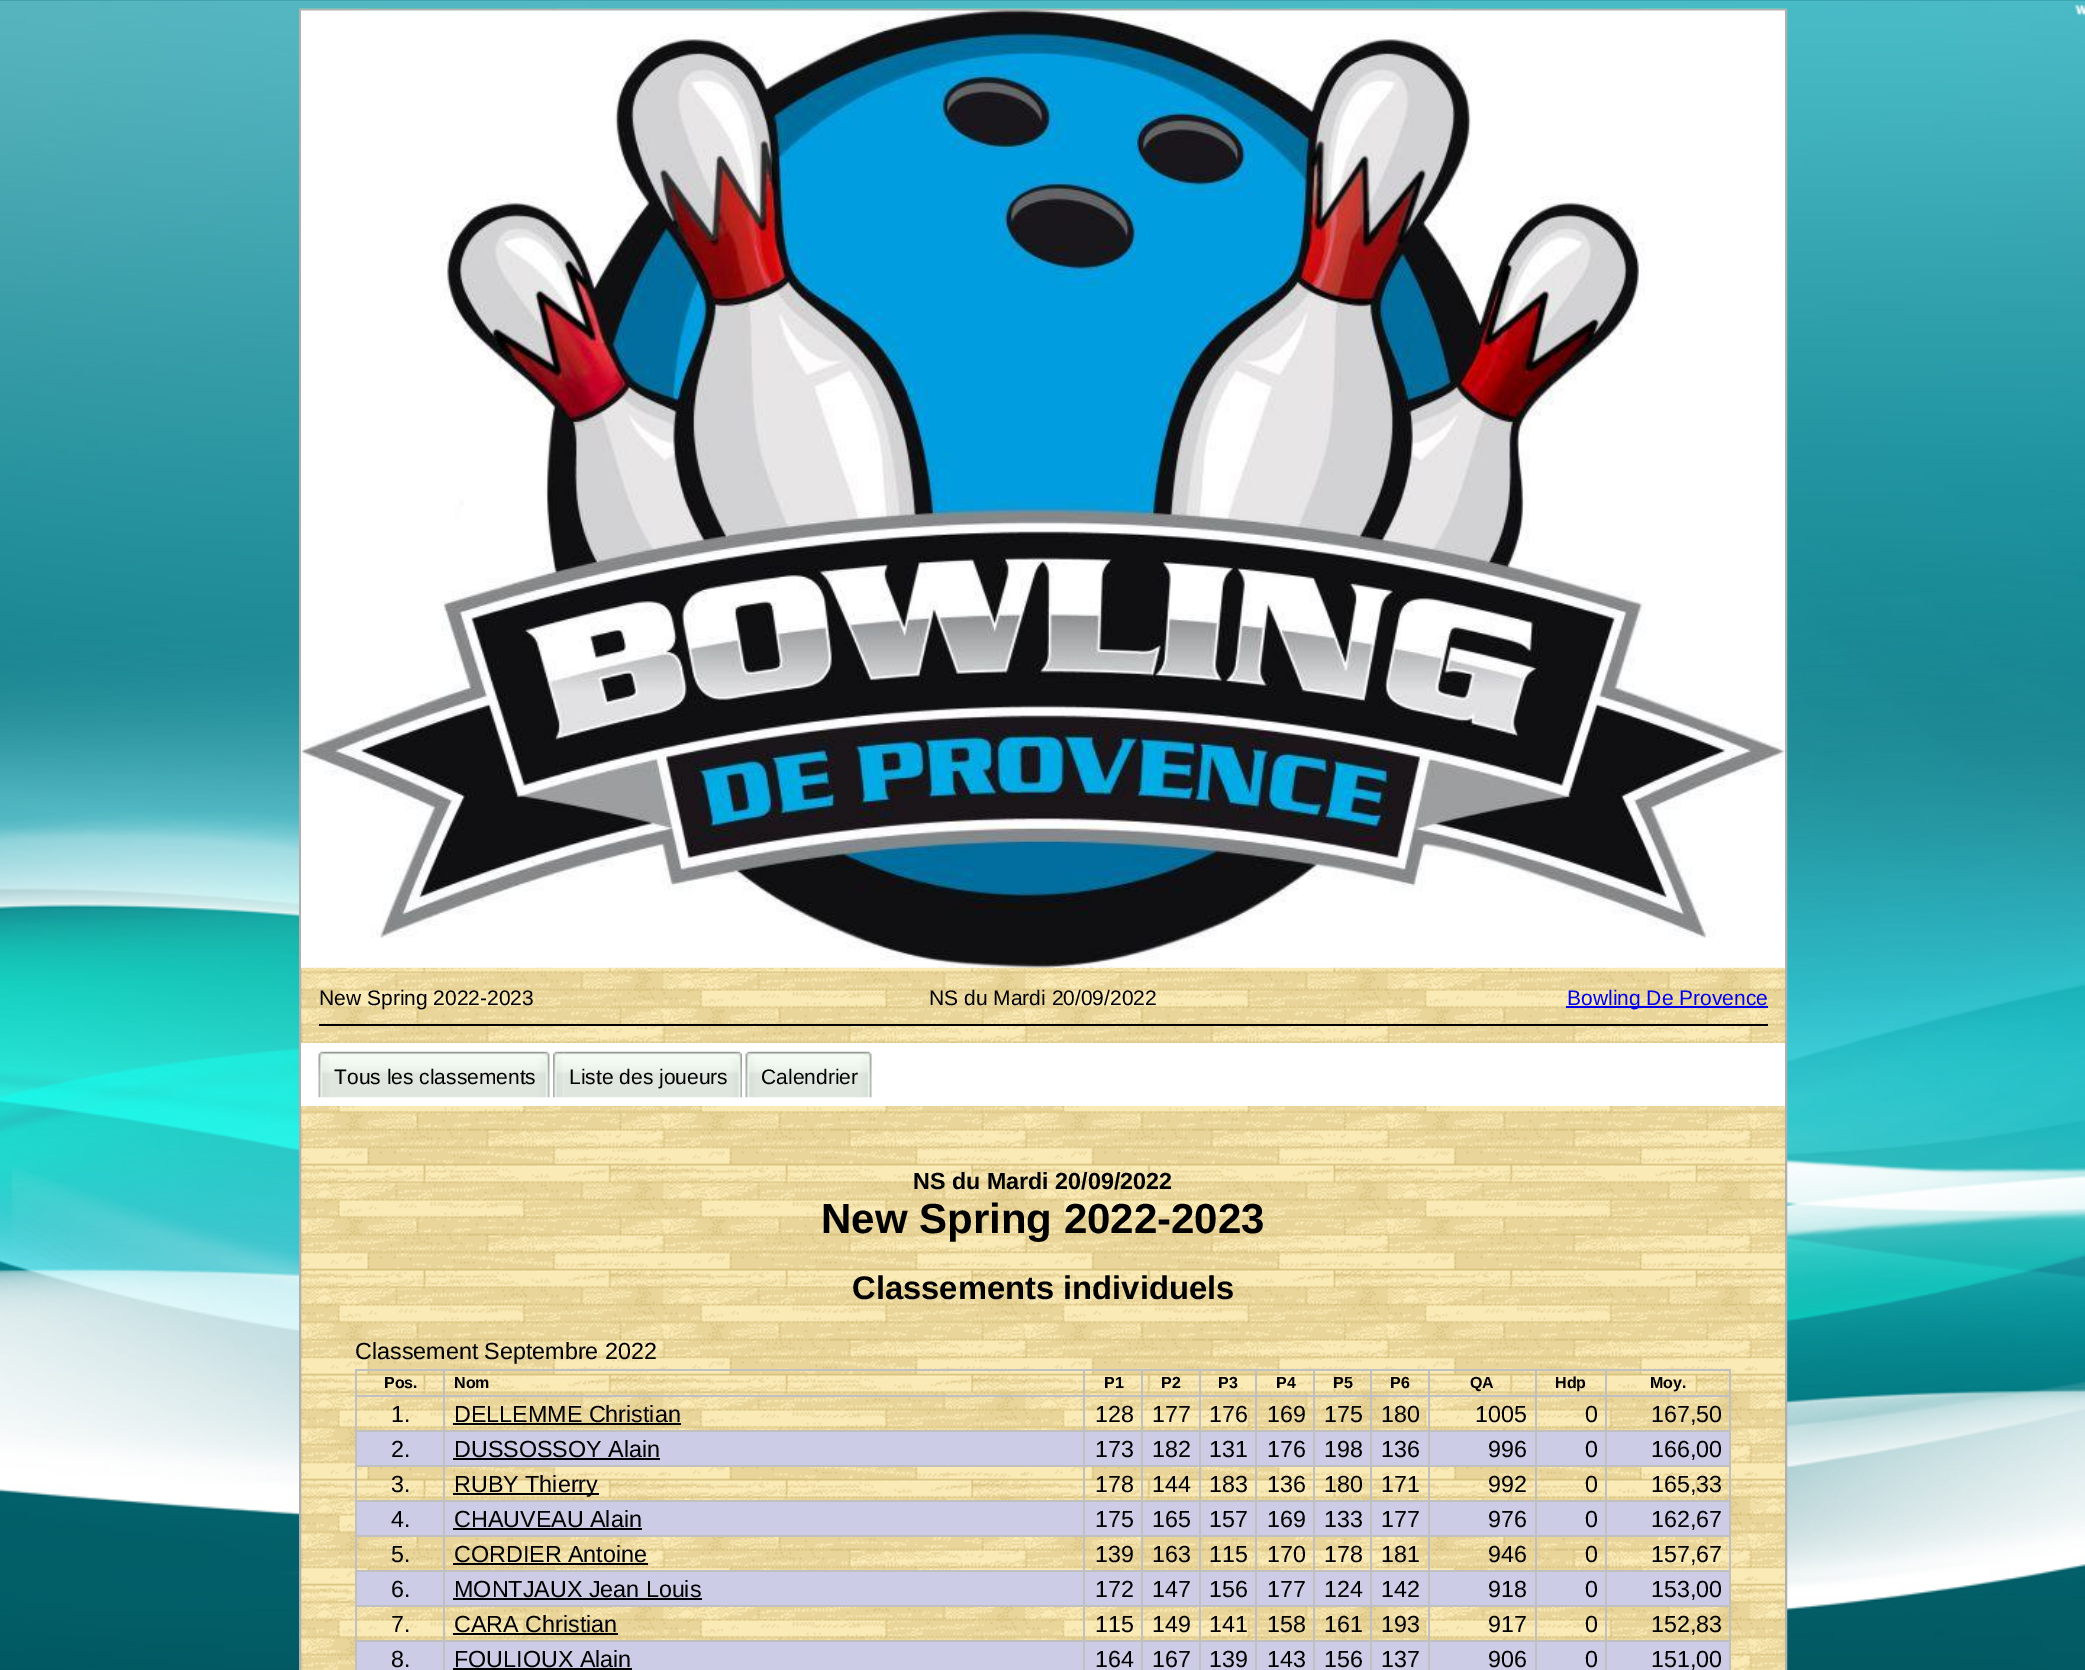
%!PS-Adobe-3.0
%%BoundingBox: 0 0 2085 1670
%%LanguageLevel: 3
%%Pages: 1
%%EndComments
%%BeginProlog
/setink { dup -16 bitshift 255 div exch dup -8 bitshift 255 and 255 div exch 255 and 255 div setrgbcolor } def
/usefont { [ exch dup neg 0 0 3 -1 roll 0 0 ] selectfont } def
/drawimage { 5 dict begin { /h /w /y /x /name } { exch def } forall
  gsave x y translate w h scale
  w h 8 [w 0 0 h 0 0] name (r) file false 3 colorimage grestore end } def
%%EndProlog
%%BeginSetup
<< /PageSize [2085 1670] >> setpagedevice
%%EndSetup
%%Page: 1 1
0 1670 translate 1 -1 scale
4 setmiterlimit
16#FFFFFF setink
0 0 2085 1670 rectfill
(img1.raw) 0 0 2085 1670 drawimage
(img2.raw) 299 8 1488 1662 drawimage
16#B0B0B0 setink
2 setlinewidth
300 10 1486 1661 rectstroke
(img3.raw) 301 10 1484 958 drawimage
/LiberationSans-Regular 21 usefont
16#000000 setink
319 1005 moveto (New Spring 2022-2023) show
929 1005 moveto (NS du Mardi 20/09/2022) show
16#0000EE setink
1566 1006 202 2 rectfill
1567 1005 moveto (Bowling De Provence) show
16#000000 setink
319 1024 1449 2 rectfill
16#FFFFFF setink
301 1043 1484 63 rectfill
(img4.raw) 318 1051 11 47 drawimage
(img5.raw) 329 1051 221 47 drawimage
16#000000 setink
334 1084 moveto (Tous les classements) show
(img6.raw) 553 1051 11 47 drawimage
(img7.raw) 563 1051 179 47 drawimage
569 1084 moveto (Liste des joueurs) show
(img8.raw) 745 1051 11 47 drawimage
(img9.raw) 756 1051 116 47 drawimage
761 1084 moveto (Calendrier) show
/LiberationSans-Bold 23.3 usefont
913 1189 moveto (NS du Mardi 20/09/2022) show
/LiberationSans-Bold 42 usefont
821 1233 moveto (New Spring 2022-2023) show
/LiberationSans-Bold 32.75 usefont
852 1299 moveto (Classements individuels) show
/LiberationSans-Regular 23.3 usefont
355 1359 moveto (Classement Septembre 2022) show
[
    [1605 1369 126 2 16#C0C0C0]
    [1605 1395 126 2 16#C0C0C0]
    [1605 1430 126 2 16#C0C0C0]
    [357 1432 1372 33 16#CCCCE6]
    [1605 1465 126 2 16#C0C0C0]
    [1605 1500 126 2 16#C0C0C0]
    [357 1502 1372 33 16#CCCCE6]
    [1605 1535 126 2 16#C0C0C0]
    [1605 1570 126 2 16#C0C0C0]
    [357 1572 1372 33 16#CCCCE6]
    [1605 1605 126 2 16#C0C0C0]
    [1605 1640 126 2 16#C0C0C0]
    [357 1642 1372 28 16#CCCCE6]
    [1605 1640 2 30 16#C0C0C0]
    [1535 1640 72 2 16#C0C0C0]
    [1605 1605 2 37 16#C0C0C0]
    [1535 1605 72 2 16#C0C0C0]
    [1605 1570 2 37 16#C0C0C0]
    [1535 1570 72 2 16#C0C0C0]
    [1605 1535 2 37 16#C0C0C0]
    [1535 1535 72 2 16#C0C0C0]
    [1605 1500 2 37 16#C0C0C0]
    [1535 1500 72 2 16#C0C0C0]
    [1605 1465 2 37 16#C0C0C0]
    [1535 1465 72 2 16#C0C0C0]
    [1605 1430 2 37 16#C0C0C0]
    [1535 1430 72 2 16#C0C0C0]
    [1605 1395 2 37 16#C0C0C0]
    [1535 1395 72 2 16#C0C0C0]
    [1605 1369 2 28 16#C0C0C0]
    [1535 1369 72 2 16#C0C0C0]
    [1535 1640 2 30 16#C0C0C0]
    [1428 1640 109 2 16#C0C0C0]
    [1535 1605 2 37 16#C0C0C0]
    [1428 1605 109 2 16#C0C0C0]
    [1535 1570 2 37 16#C0C0C0]
    [1428 1570 109 2 16#C0C0C0]
    [1535 1535 2 37 16#C0C0C0]
    [1428 1535 109 2 16#C0C0C0]
    [1535 1500 2 37 16#C0C0C0]
    [1428 1500 109 2 16#C0C0C0]
    [1535 1465 2 37 16#C0C0C0]
    [1428 1465 109 2 16#C0C0C0]
    [1535 1430 2 37 16#C0C0C0]
    [1428 1430 109 2 16#C0C0C0]
    [1535 1395 2 37 16#C0C0C0]
    [1428 1395 109 2 16#C0C0C0]
    [1535 1369 2 28 16#C0C0C0]
    [1428 1369 109 2 16#C0C0C0]
    [1428 1640 2 30 16#C0C0C0]
    [1370 1640 60 2 16#C0C0C0]
    [1428 1605 2 37 16#C0C0C0]
    [1370 1605 60 2 16#C0C0C0]
    [1428 1570 2 37 16#C0C0C0]
    [1370 1570 60 2 16#C0C0C0]
    [1428 1535 2 37 16#C0C0C0]
    [1370 1535 60 2 16#C0C0C0]
    [1428 1500 2 37 16#C0C0C0]
    [1370 1500 60 2 16#C0C0C0]
    [1428 1465 2 37 16#C0C0C0]
    [1370 1465 60 2 16#C0C0C0]
    [1428 1430 2 37 16#C0C0C0]
    [1370 1430 60 2 16#C0C0C0]
    [1428 1395 2 37 16#C0C0C0]
    [1370 1395 60 2 16#C0C0C0]
    [1428 1369 2 28 16#C0C0C0]
    [1370 1369 60 2 16#C0C0C0]
    [1370 1640 2 30 16#C0C0C0]
    [1313 1640 59 2 16#C0C0C0]
    [1370 1605 2 37 16#C0C0C0]
    [1313 1605 59 2 16#C0C0C0]
    [1370 1570 2 37 16#C0C0C0]
    [1313 1570 59 2 16#C0C0C0]
    [1370 1535 2 37 16#C0C0C0]
    [1313 1535 59 2 16#C0C0C0]
    [1370 1500 2 37 16#C0C0C0]
    [1313 1500 59 2 16#C0C0C0]
    [1370 1465 2 37 16#C0C0C0]
    [1313 1465 59 2 16#C0C0C0]
    [1370 1430 2 37 16#C0C0C0]
    [1313 1430 59 2 16#C0C0C0]
    [1370 1395 2 37 16#C0C0C0]
    [1313 1395 59 2 16#C0C0C0]
    [1370 1369 2 28 16#C0C0C0]
    [1313 1369 59 2 16#C0C0C0]
    [1313 1640 2 30 16#C0C0C0]
    [1255 1640 59 2 16#C0C0C0]
    [1313 1605 2 37 16#C0C0C0]
    [1255 1605 59 2 16#C0C0C0]
    [1313 1570 2 37 16#C0C0C0]
    [1255 1570 59 2 16#C0C0C0]
    [1313 1535 2 37 16#C0C0C0]
    [1255 1535 59 2 16#C0C0C0]
    [1313 1500 2 37 16#C0C0C0]
    [1255 1500 59 2 16#C0C0C0]
    [1313 1465 2 37 16#C0C0C0]
    [1255 1465 59 2 16#C0C0C0]
    [1313 1430 2 37 16#C0C0C0]
    [1255 1430 59 2 16#C0C0C0]
    [1313 1395 2 37 16#C0C0C0]
    [1255 1395 59 2 16#C0C0C0]
    [1313 1369 2 28 16#C0C0C0]
    [1255 1369 59 2 16#C0C0C0]
    [1255 1640 2 30 16#C0C0C0]
    [1199 1640 58 2 16#C0C0C0]
    [1255 1605 2 37 16#C0C0C0]
    [1199 1605 58 2 16#C0C0C0]
    [1255 1570 2 37 16#C0C0C0]
    [1199 1570 58 2 16#C0C0C0]
    [1255 1535 2 37 16#C0C0C0]
    [1199 1535 58 2 16#C0C0C0]
    [1255 1500 2 37 16#C0C0C0]
    [1199 1500 58 2 16#C0C0C0]
    [1255 1465 2 37 16#C0C0C0]
    [1199 1465 58 2 16#C0C0C0]
    [1255 1430 2 37 16#C0C0C0]
    [1199 1430 58 2 16#C0C0C0]
    [1255 1395 2 37 16#C0C0C0]
    [1199 1395 58 2 16#C0C0C0]
    [1255 1369 2 28 16#C0C0C0]
    [1199 1369 58 2 16#C0C0C0]
    [1199 1640 2 30 16#C0C0C0]
    [1141 1640 60 2 16#C0C0C0]
    [1199 1605 2 37 16#C0C0C0]
    [1141 1605 60 2 16#C0C0C0]
    [1199 1570 2 37 16#C0C0C0]
    [1141 1570 60 2 16#C0C0C0]
    [1199 1535 2 37 16#C0C0C0]
    [1141 1535 60 2 16#C0C0C0]
    [1199 1500 2 37 16#C0C0C0]
    [1141 1500 60 2 16#C0C0C0]
    [1199 1465 2 37 16#C0C0C0]
    [1141 1465 60 2 16#C0C0C0]
    [1199 1430 2 37 16#C0C0C0]
    [1141 1430 60 2 16#C0C0C0]
    [1199 1395 2 37 16#C0C0C0]
    [1141 1395 60 2 16#C0C0C0]
    [1199 1369 2 28 16#C0C0C0]
    [1141 1369 60 2 16#C0C0C0]
    [1141 1640 2 30 16#C0C0C0]
    [1083 1640 60 2 16#C0C0C0]
    [1141 1605 2 37 16#C0C0C0]
    [1083 1605 60 2 16#C0C0C0]
    [1141 1570 2 37 16#C0C0C0]
    [1083 1570 60 2 16#C0C0C0]
    [1141 1535 2 37 16#C0C0C0]
    [1083 1535 60 2 16#C0C0C0]
    [1141 1500 2 37 16#C0C0C0]
    [1083 1500 60 2 16#C0C0C0]
    [1141 1465 2 37 16#C0C0C0]
    [1083 1465 60 2 16#C0C0C0]
    [1141 1430 2 37 16#C0C0C0]
    [1083 1430 60 2 16#C0C0C0]
    [1141 1395 2 37 16#C0C0C0]
    [1083 1395 60 2 16#C0C0C0]
    [1141 1369 2 28 16#C0C0C0]
    [1083 1369 60 2 16#C0C0C0]
    [1083 1640 2 30 16#C0C0C0]
    [443 1640 642 2 16#C0C0C0]
    [1083 1605 2 37 16#C0C0C0]
    [443 1605 642 2 16#C0C0C0]
    [1083 1570 2 37 16#C0C0C0]
    [443 1570 642 2 16#C0C0C0]
    [1083 1535 2 37 16#C0C0C0]
    [443 1535 642 2 16#C0C0C0]
    [1083 1500 2 37 16#C0C0C0]
    [443 1500 642 2 16#C0C0C0]
    [1083 1465 2 37 16#C0C0C0]
    [443 1465 642 2 16#C0C0C0]
    [1083 1430 2 37 16#C0C0C0]
    [443 1430 642 2 16#C0C0C0]
    [1083 1395 2 37 16#C0C0C0]
    [443 1395 642 2 16#C0C0C0]
    [1083 1369 2 28 16#C0C0C0]
    [443 1369 642 2 16#C0C0C0]
    [443 1640 2 30 16#C0C0C0]
    [355 1640 90 2 16#C0C0C0]
    [443 1605 2 37 16#C0C0C0]
    [355 1605 90 2 16#C0C0C0]
    [443 1570 2 37 16#C0C0C0]
    [355 1570 90 2 16#C0C0C0]
    [443 1535 2 37 16#C0C0C0]
    [355 1535 90 2 16#C0C0C0]
    [443 1500 2 37 16#C0C0C0]
    [355 1500 90 2 16#C0C0C0]
    [443 1465 2 37 16#C0C0C0]
    [355 1465 90 2 16#C0C0C0]
    [443 1430 2 37 16#C0C0C0]
    [355 1430 90 2 16#C0C0C0]
    [443 1395 2 37 16#C0C0C0]
    [355 1395 90 2 16#C0C0C0]
    [443 1369 2 28 16#C0C0C0]
    [355 1369 90 2 16#C0C0C0]
    [355 1640 2 30 16#C0C0C0]
    [355 1605 2 37 16#C0C0C0]
    [355 1570 2 37 16#C0C0C0]
    [355 1535 2 37 16#C0C0C0]
    [355 1500 2 37 16#C0C0C0]
    [355 1465 2 37 16#C0C0C0]
    [355 1430 2 37 16#C0C0C0]
    [355 1395 2 37 16#C0C0C0]
    [355 1369 2 28 16#C0C0C0]
] { aload pop setink rectfill } forall
/LiberationSans-Bold 16 usefont
16#000000 setink
[
    [(Pos.) 384 1388]
    [(Nom) 454 1388]
    [(P1) 1104 1388]
    [(P2) 1161 1388]
    [(P3) 1218 1388]
    [(P4) 1276 1388]
    [(P5) 1333 1388]
    [(P6) 1390 1388]
    [(QA) 1470 1388]
    [(Hdp) 1555 1388]
] { aload pop moveto show } forall
[
    [1729 1640 2 30 16#C0C0C0]
    [1729 1605 2 37 16#C0C0C0]
    [1729 1570 2 37 16#C0C0C0]
    [1729 1535 2 37 16#C0C0C0]
    [1729 1500 2 37 16#C0C0C0]
    [1729 1465 2 37 16#C0C0C0]
    [1729 1430 2 37 16#C0C0C0]
    [1729 1395 2 37 16#C0C0C0]
    [1729 1369 2 28 16#C0C0C0]
] { aload pop setink rectfill } forall
16#000000 setink
1650 1388 moveto (Moy.) show
/LiberationSans-Regular 23.3 usefont
391 1422 moveto (1.) show
454 1422 moveto (DELLEMME Christian) show
453 1423 228 2 rectfill
[
    [(128) 1095 1422]
    [(177) 1152 1422]
    [(176) 1209 1422]
    [(169) 1267 1422]
    [(175) 1324 1422]
    [(180) 1381 1422]
    [(1005) 1475 1422]
    [(0) 1585 1422]
    [(167,50) 1651 1422]
    [(2.) 391 1457]
    [(DUSSOSSOY Alain) 454 1457]
] { aload pop moveto show } forall
453 1458 207 2 rectfill
[
    [(173) 1095 1457]
    [(182) 1152 1457]
    [(131) 1209 1457]
    [(176) 1267 1457]
    [(198) 1324 1457]
    [(136) 1381 1457]
    [(996) 1488 1457]
    [(0) 1585 1457]
    [(166,00) 1651 1457]
    [(3.) 391 1492]
] { aload pop moveto show } forall
453 1493 146 2 rectfill
[
    [(RUBY Thierry) 454 1492]
    [(178) 1095 1492]
    [(144) 1152 1492]
    [(183) 1209 1492]
    [(136) 1267 1492]
    [(180) 1324 1492]
    [(171) 1381 1492]
    [(992) 1488 1492]
    [(0) 1585 1492]
    [(165,33) 1651 1492]
    [(4.) 391 1527]
    [(CHAUVEAU Alain) 454 1527]
] { aload pop moveto show } forall
453 1528 189 2 rectfill
[
    [(175) 1095 1527]
    [(165) 1152 1527]
    [(157) 1209 1527]
    [(169) 1267 1527]
    [(133) 1324 1527]
    [(177) 1381 1527]
    [(976) 1488 1527]
    [(0) 1585 1527]
    [(162,67) 1651 1527]
    [(5.) 391 1562]
    [(CORDIER Antoine) 454 1562]
] { aload pop moveto show } forall
453 1563 195 2 rectfill
[
    [(139) 1095 1562]
    [(163) 1152 1562]
    [(115) 1209 1562]
    [(170) 1267 1562]
    [(178) 1324 1562]
    [(181) 1381 1562]
    [(946) 1488 1562]
    [(0) 1585 1562]
    [(157,67) 1651 1562]
    [(6.) 391 1597]
    [(MONTJAUX Jean Louis) 454 1597]
] { aload pop moveto show } forall
453 1598 249 2 rectfill
[
    [(172) 1095 1597]
    [(147) 1152 1597]
    [(156) 1209 1597]
    [(177) 1267 1597]
    [(124) 1324 1597]
    [(142) 1381 1597]
    [(918) 1488 1597]
    [(0) 1585 1597]
    [(153,00) 1651 1597]
    [(7.) 391 1632]
    [(CARA Christian) 454 1632]
] { aload pop moveto show } forall
453 1633 165 2 rectfill
[
    [(115) 1095 1632]
    [(149) 1152 1632]
    [(141) 1209 1632]
    [(158) 1267 1632]
    [(161) 1324 1632]
    [(193) 1381 1632]
    [(917) 1488 1632]
    [(0) 1585 1632]
    [(152,83) 1651 1632]
    [(8.) 391 1667]
    [(FOULIOUX Alain) 454 1667]
] { aload pop moveto show } forall
453 1668 179 2 rectfill
[
    [(164) 1095 1667]
    [(167) 1152 1667]
    [(139) 1209 1667]
    [(143) 1267 1667]
    [(156) 1324 1667]
    [(137) 1381 1667]
    [(906) 1488 1667]
    [(0) 1585 1667]
    [(151,00) 1651 1667]
] { aload pop moveto show } forall
showpage
%%EOF
